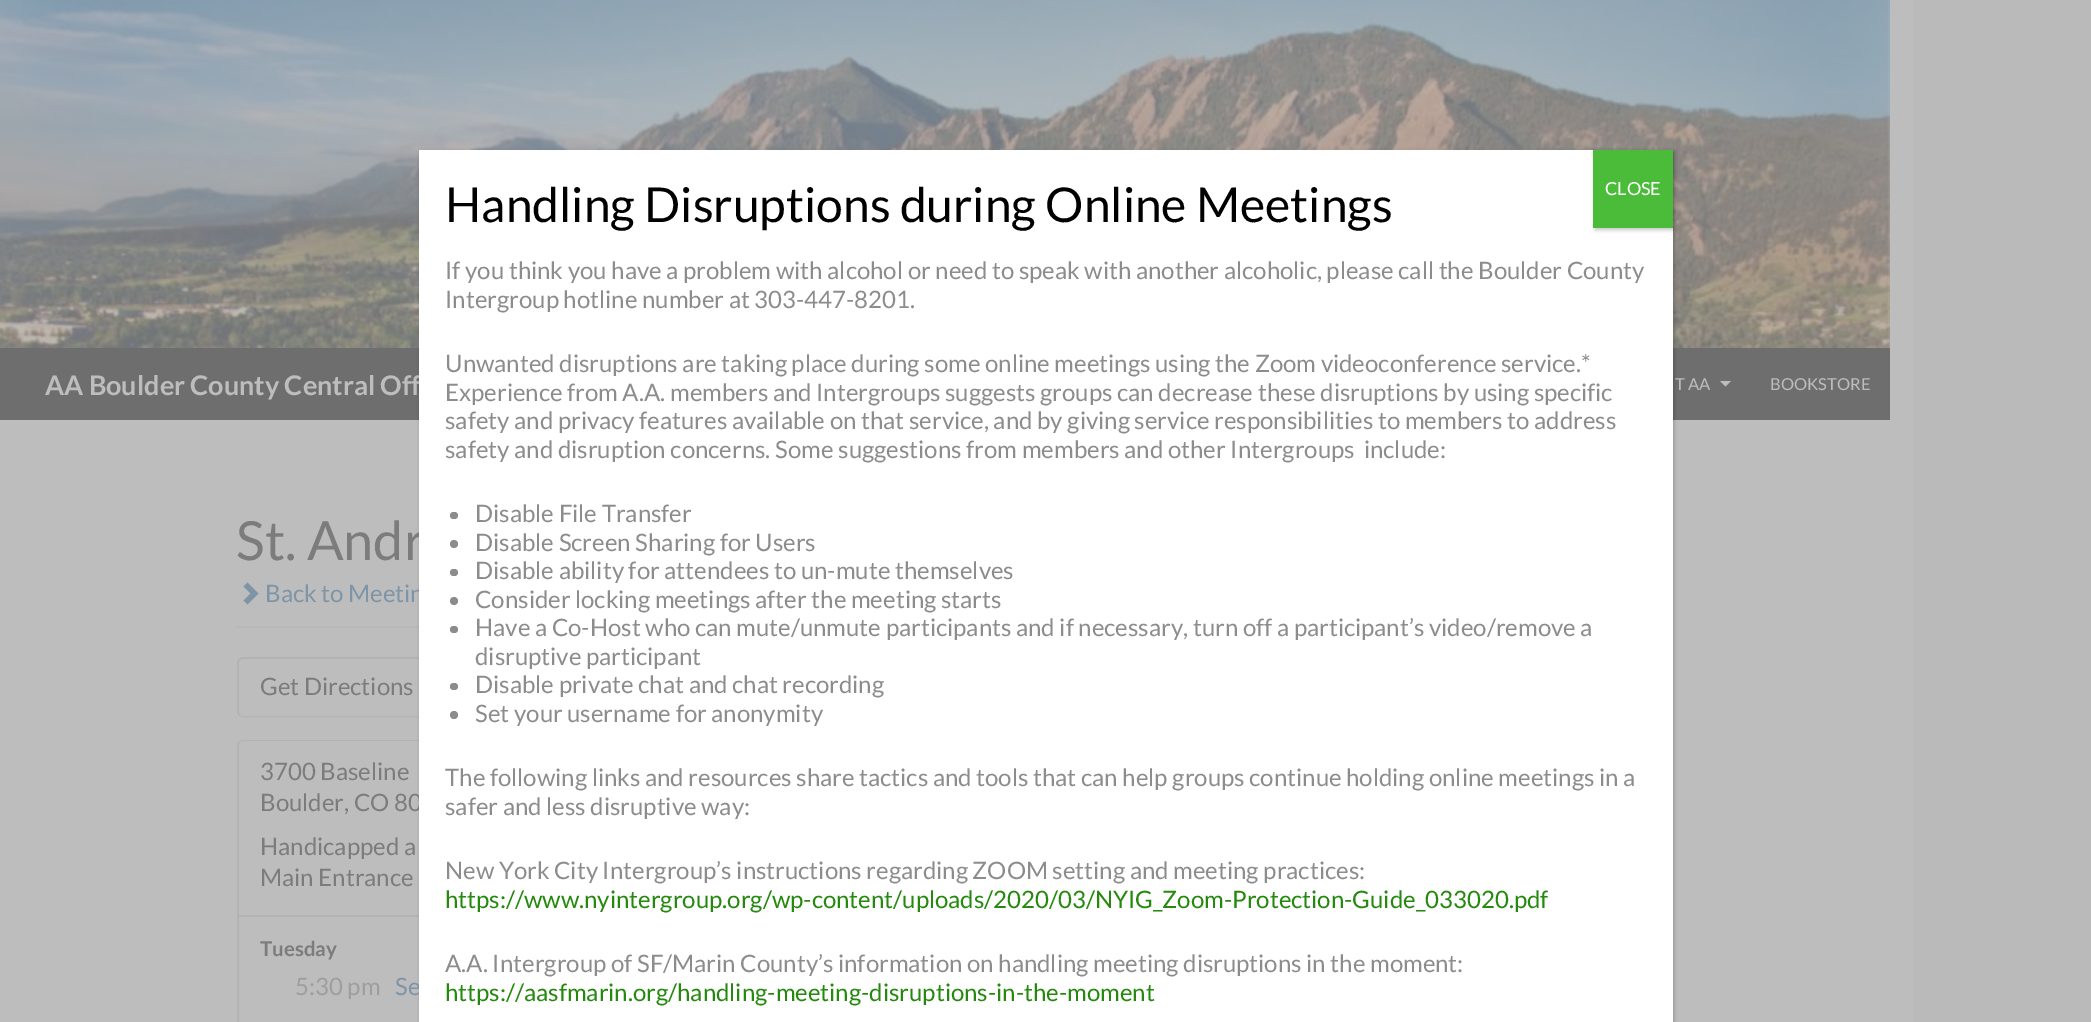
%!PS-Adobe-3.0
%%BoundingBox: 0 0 2091 1022
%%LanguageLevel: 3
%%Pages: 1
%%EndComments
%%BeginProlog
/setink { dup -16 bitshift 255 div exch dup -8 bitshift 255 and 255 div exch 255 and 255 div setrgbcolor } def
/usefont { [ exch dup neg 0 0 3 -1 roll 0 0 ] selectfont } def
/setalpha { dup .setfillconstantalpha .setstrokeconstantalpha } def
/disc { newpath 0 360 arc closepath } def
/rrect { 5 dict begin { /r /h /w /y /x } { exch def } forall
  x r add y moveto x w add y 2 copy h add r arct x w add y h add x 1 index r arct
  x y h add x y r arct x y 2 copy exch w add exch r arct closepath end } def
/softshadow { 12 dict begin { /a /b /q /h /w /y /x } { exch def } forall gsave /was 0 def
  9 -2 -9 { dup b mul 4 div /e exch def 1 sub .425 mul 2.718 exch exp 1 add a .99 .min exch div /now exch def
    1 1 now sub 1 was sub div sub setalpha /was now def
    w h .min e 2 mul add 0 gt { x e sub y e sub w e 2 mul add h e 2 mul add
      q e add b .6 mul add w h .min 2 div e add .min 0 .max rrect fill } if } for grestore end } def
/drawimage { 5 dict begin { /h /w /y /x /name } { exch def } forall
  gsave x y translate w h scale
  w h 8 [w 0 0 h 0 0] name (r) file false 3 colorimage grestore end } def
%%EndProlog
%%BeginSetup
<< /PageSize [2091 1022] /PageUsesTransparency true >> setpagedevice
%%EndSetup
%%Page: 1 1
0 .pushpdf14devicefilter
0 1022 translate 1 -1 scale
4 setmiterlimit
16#BABABA setink
0 0 2091 1022 rectfill
16#BDBDBD setink
0 0 1913 1022 rectfill
(img1.raw) 0 0 1890 348 drawimage
16#6E6E6E setink
0 348 1890 72 rectfill
16#B8B8B8 setink
237 626 182 2 rectfill
16#B3B3B3 setink
2 setlinewidth
238 658 439 58 5 rrect stroke
16#BDBDBD setink
239 659 438 57 5 rrect fill
16#B3B3B3 setink
238 741 439 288 5 rrect stroke
16#BDBDBD setink
244 741 moveto 672 741 lineto 675 741 677 743 677 746 curveto 677 917 lineto 239 917 lineto 239 746 lineto 239 743 241 741 244 741 curveto closepath fill
16#B3B3B3 setink
239 915 180 2 rectfill
16#020202 setink
420 152 1254 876 0 2 0.23 softshadow
/Lato-Bold 27 usefont
16#BDBDBD setink
45 395 moveto (AA Boulder County Central Off) show
/Lato-Regular 54 usefont
16#7C7C7C setink
236 560 moveto (St. Andr) show
/Lato-Regular 24 usefont
16#7E94A7 setink
265 602 moveto (Back to Meetin) show
16#7C7C7C setink
260 811 moveto (Boulder, CO 80) show
16#7E94A7 setink
395 995 moveto (Se) show
16#FFFFFF setink
419 150 1254 872 rectfill
/Lato-Regular 48 usefont
16#000000 setink
445 222 moveto (Handling Disruptions during Online Meetings) show
16#020202 setink
1595 152 79 78 0 2 0.23 softshadow
16#4BBC3A setink
1593 150 80 78 rectfill
/Lato-Regular 18 usefont
16#FFFFFF setink
1605 195 moveto (CLOSE) show
/Lato-Regular 24 usefont
16#8C8C8C setink
[
    [(If you think you have a problem with alcohol or need to speak with another alcoholic, please call the Boulder County) 445 279]
    [(Intergroup hotline number at 303-447-8201.) 445 308]
    [(Unwanted disruptions are taking place during some online meetings using the Zoom videoconference service.*) 445 372]
    [(Experience from A.A. members and Intergroups suggests groups can decrease these disruptions by using specific) 445 401]
    [(safety and privacy features available on that service, and by giving service responsibilities to members to address) 445 429]
    [(safety and disruption concerns. Some suggestions from members and other Intergroups  include:) 445 458]
] { aload pop moveto show } forall
450 512 8 7 3.5 rrect fill
475 522 moveto (Disable File Transfer) show
454 544 4 disc fill
475 551 moveto (Disable Screen Sharing for Users) show
450 569 8 7 3.5 rrect fill
475 579 moveto (Disable ability for attendees to un-mute themselves) show
454 601 4 disc fill
475 608 moveto (Consider locking meetings after the meeting starts) show
450 626 8 7 3.5 rrect fill
475 636 moveto (Have a Co-Host who can mute/unmute participants and if necessary, turn off a participant’s video/remove a) show
475 665 moveto (disruptive participant) show
450 683 8 7 3.5 rrect fill
475 693 moveto (Disable private chat and chat recording) show
454 715 4 disc fill
[
    [(Set your username for anonymity) 475 722]
    [(The following links and resources share tactics and tools that can help groups continue holding online meetings in a) 445 786]
    [(safer and less disruptive way:) 445 815]
    [(New York City Intergroup’s instructions regarding ZOOM setting and meeting practices:) 445 879]
] { aload pop moveto show } forall
16#24890D setink
445 908 moveto (https://www.nyintergroup.org/wp-content/uploads/2020/03/NYIG_Zoom-Protection-Guide_033020.pdf) show
16#8C8C8C setink
445 972 moveto (A.A. Intergroup of SF/Marin County’s information on handling meeting disruptions in the moment:) show
16#24890D setink
445 1001 moveto (https://aasfmarin.org/handling-meeting-disruptions-in-the-moment) show
/Lato-Regular 16.5 usefont
16#BDBDBD setink
1675 390 moveto (T AA) show
1720 381 moveto 1725.5 386.5 lineto 1731 381 lineto closepath fill
1770 390 moveto (BOOKSTORE) show
16#7E94A7 setink
258.5 593.5 moveto 247.5 604.5 lineto 243.5 600.5 lineto 250.5 593.5 lineto 243.5 586.5 lineto 247.5 582.5 lineto closepath fill
/Lato-Regular 24 usefont
16#7C7C7C setink
[
    [(Get Directions) 260 695]
    [(3700 Baseline) 260 780]
    [(Handicapped a) 260 855]
    [(Main Entrance) 260 886]
] { aload pop moveto show } forall
/Lato-Bold 20.5 usefont
260 956 moveto (Tuesday) show
/Lato-Regular 24 usefont
16#9E9E9E setink
295 995 moveto (5:30 pm) show
.poppdf14devicefilter showpage
%%EOF
